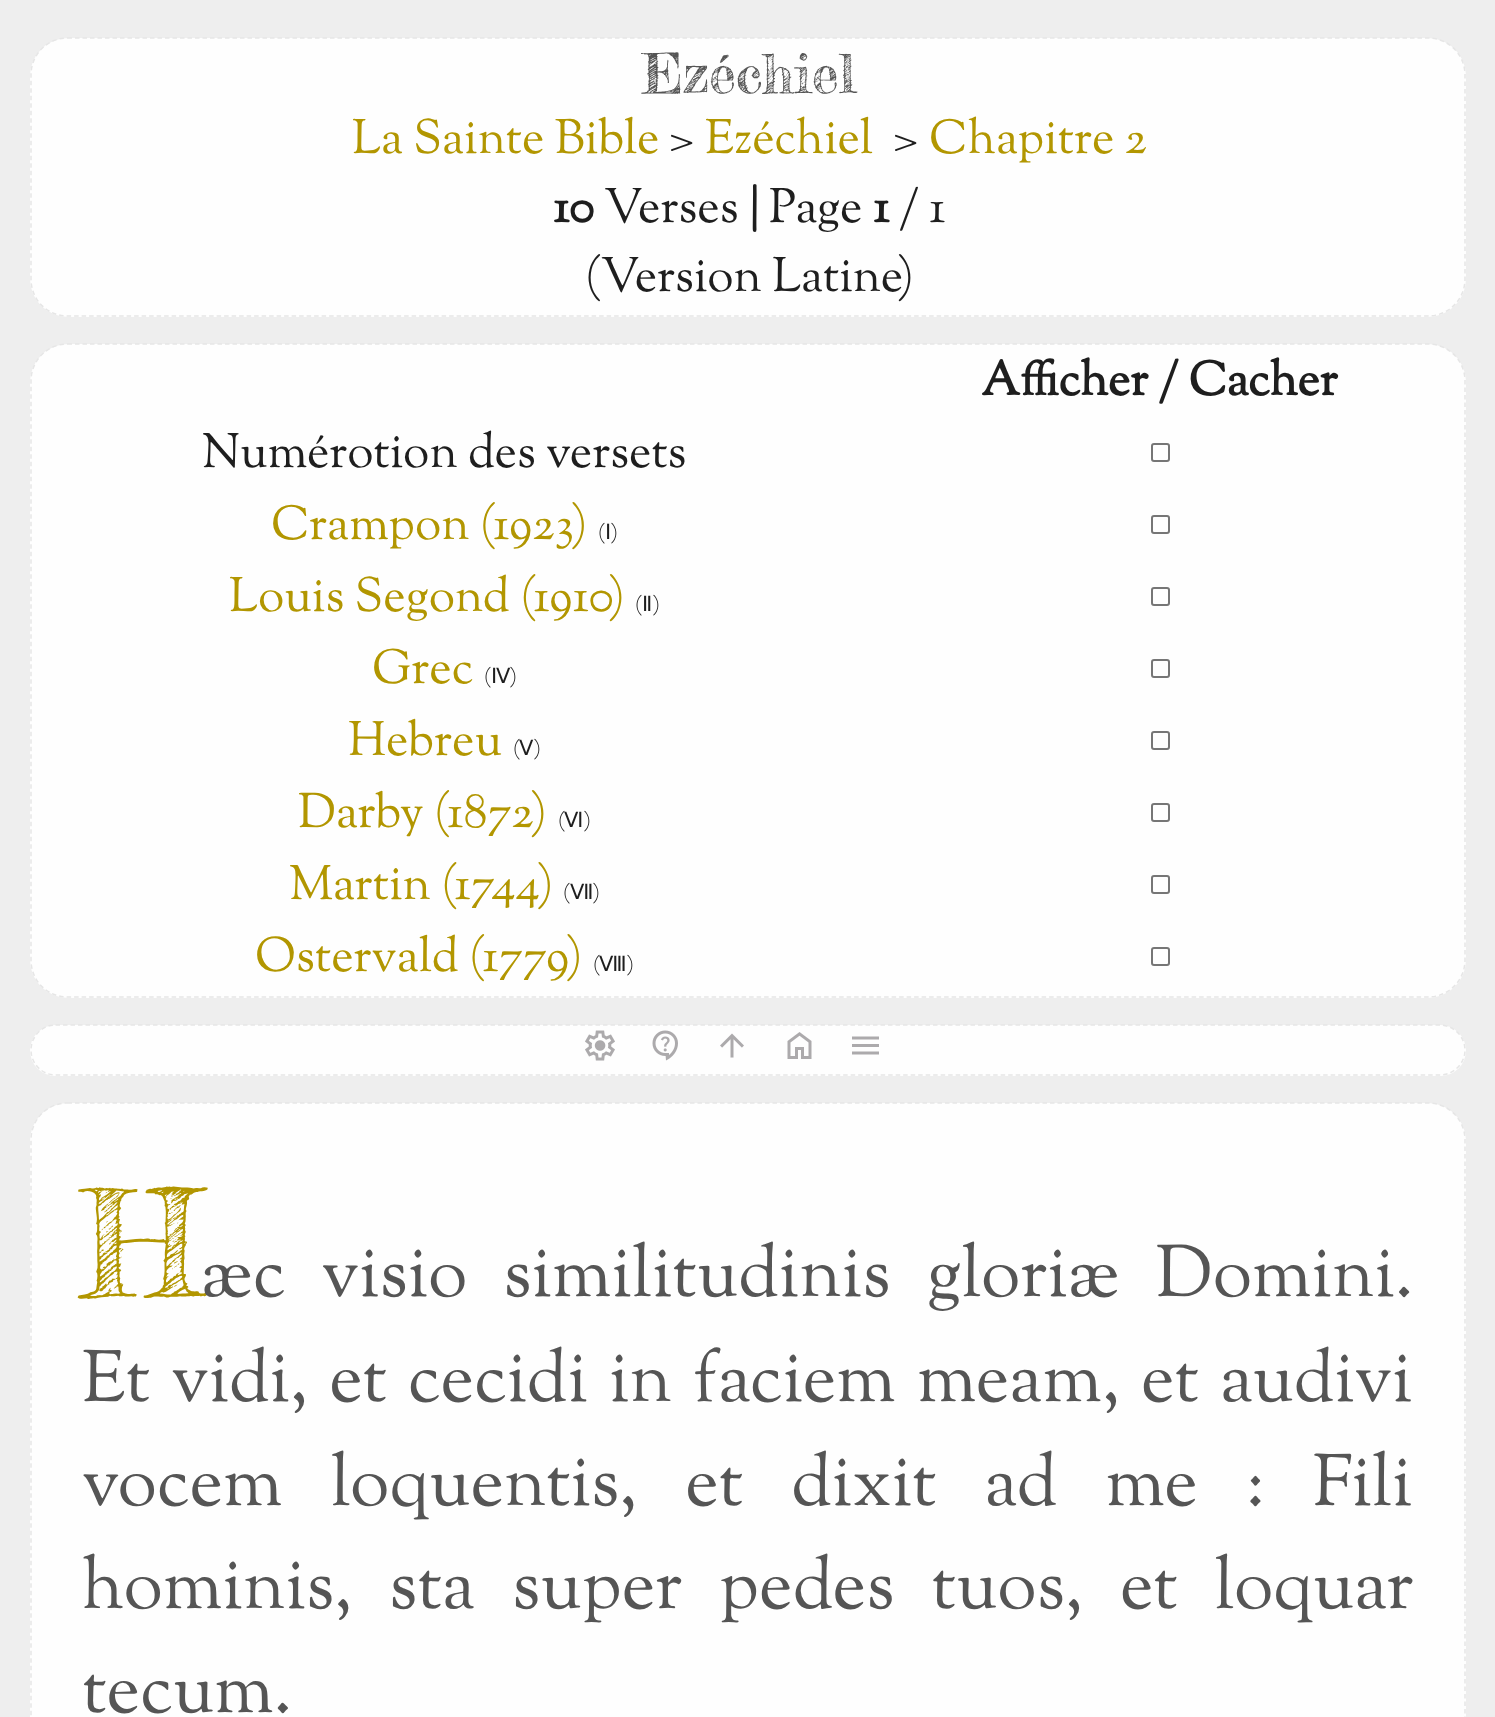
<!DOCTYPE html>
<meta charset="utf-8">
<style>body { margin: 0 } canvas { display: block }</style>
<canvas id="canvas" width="1495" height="1717"></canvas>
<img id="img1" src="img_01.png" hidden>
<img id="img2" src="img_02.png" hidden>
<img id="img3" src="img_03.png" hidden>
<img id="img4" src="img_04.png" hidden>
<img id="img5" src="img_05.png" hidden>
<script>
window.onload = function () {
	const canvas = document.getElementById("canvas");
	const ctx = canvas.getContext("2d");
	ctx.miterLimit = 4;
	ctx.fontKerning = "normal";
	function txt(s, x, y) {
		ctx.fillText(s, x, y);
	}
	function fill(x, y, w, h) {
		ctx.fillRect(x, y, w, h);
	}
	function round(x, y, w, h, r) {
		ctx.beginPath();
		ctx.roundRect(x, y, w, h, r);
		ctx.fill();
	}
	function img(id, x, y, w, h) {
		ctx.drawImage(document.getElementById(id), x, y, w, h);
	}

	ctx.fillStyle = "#EEEEEE";
	fill(0, 0, 1495, 1717);
	ctx.fillStyle = "#FEFEFE";
	round(30, 38, 1436, 279, 38);
	ctx.beginPath();
	ctx.moveTo(67.5, 38);
	ctx.lineTo(1428, 38);
	ctx.bezierCurveTo(1448.5, 38, 1465, 54.5, 1465, 75);
	ctx.lineTo(1465, 279);
	ctx.bezierCurveTo(1465, 299.5, 1448.5, 316, 1428, 316);
	ctx.lineTo(67.5, 316);
	ctx.bezierCurveTo(47, 316, 31, 299.5, 31, 279);
	ctx.lineTo(31, 75);
	ctx.bezierCurveTo(31, 54.5, 47, 38, 67.5, 38);
	ctx.closePath();
	ctx.strokeStyle = "#E6E6E6";
	ctx.lineWidth = 1.5;
	ctx.setLineDash([4.5, 3]);
	ctx.stroke();
	round(30, 344, 1436, 654, 38);
	ctx.beginPath();
	ctx.moveTo(67.5, 344);
	ctx.lineTo(1428, 344);
	ctx.bezierCurveTo(1448.5, 344, 1465, 360.5, 1465, 381);
	ctx.lineTo(1465, 960);
	ctx.bezierCurveTo(1465, 980.5, 1448.5, 997, 1428, 997);
	ctx.lineTo(67.5, 997);
	ctx.bezierCurveTo(47, 997, 31, 980.5, 31, 960);
	ctx.lineTo(31, 381);
	ctx.bezierCurveTo(31, 360.5, 47, 344, 67.5, 344);
	ctx.closePath();
	ctx.stroke();
	ctx.beginPath();
	ctx.roundRect(1152, 444, 17, 17, 2);
	ctx.strokeStyle = "#767676";
	ctx.lineWidth = 2;
	ctx.setLineDash([]);
	ctx.stroke();
	ctx.beginPath();
	ctx.roundRect(1152, 516, 17, 17, 2);
	ctx.stroke();
	ctx.beginPath();
	ctx.roundRect(1152, 588, 17, 17, 2);
	ctx.stroke();
	ctx.beginPath();
	ctx.roundRect(1152, 660, 17, 17, 2);
	ctx.stroke();
	ctx.beginPath();
	ctx.roundRect(1152, 732, 17, 17, 2);
	ctx.stroke();
	ctx.beginPath();
	ctx.roundRect(1152, 804, 17, 17, 2);
	ctx.stroke();
	ctx.beginPath();
	ctx.roundRect(1152, 876, 17, 17, 2);
	ctx.stroke();
	ctx.beginPath();
	ctx.roundRect(1152, 948, 17, 17, 2);
	ctx.stroke();
	round(30, 1025, 1436, 51, 25.5);
	ctx.beginPath();
	ctx.moveTo(55.5, 1025);
	ctx.lineTo(1440, 1025);
	ctx.bezierCurveTo(1453.5, 1025, 1465, 1036.5, 1465, 1050);
	ctx.bezierCurveTo(1465, 1063.5, 1453.5, 1075, 1440, 1075);
	ctx.lineTo(55.5, 1075);
	ctx.bezierCurveTo(42, 1075, 31, 1063.5, 31, 1050);
	ctx.bezierCurveTo(31, 1036.5, 42, 1025, 55.5, 1025);
	ctx.closePath();
	ctx.strokeStyle = "#E6E6E6";
	ctx.lineWidth = 1.5;
	ctx.setLineDash([4.5, 3]);
	ctx.stroke();
	img("img1", 585, 1030, 30, 31);
	img("img2", 652, 1030, 26, 31);
	img("img3", 720, 1033, 24, 25);
	img("img4", 787, 1032, 25, 27);
	img("img5", 852, 1036, 27, 19);
	round(30, 1103, 1436, 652, 38);
	ctx.beginPath();
	ctx.moveTo(67.5, 1103);
	ctx.lineTo(1428, 1103);
	ctx.bezierCurveTo(1448.5, 1103, 1465, 1119.5, 1465, 1140);
	ctx.lineTo(1465, 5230.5);
	ctx.bezierCurveTo(1465, 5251, 1448.5, 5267, 1428, 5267);
	ctx.lineTo(67.5, 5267);
	ctx.bezierCurveTo(47, 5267, 31, 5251, 31, 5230.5);
	ctx.lineTo(31, 1140);
	ctx.bezierCurveTo(31, 1119.5, 47, 1103, 67.5, 1103);
	ctx.closePath();
	ctx.stroke();
	ctx.font = "54px Fredericka the Great";
	ctx.fillStyle = "#555555";
	txt("Ezéchiel", 642, 93);
	ctx.font = "48px Sorts Mill Goudy";
	ctx.fillStyle = "#B29600";
	txt("La Sainte Bible", 352, 153);
	ctx.fillStyle = "#1E1E1E";
	txt(">", 669, 153);
	ctx.fillStyle = "#B29600";
	txt("Ezéchiel", 705, 153);
	ctx.fillStyle = "#1E1E1E";
	txt(">", 893, 153);
	ctx.fillStyle = "#B29600";
	txt("Chapitre 2", 929, 153);
	ctx.font = "bold 48px Sorts Mill Goudy";
	ctx.fillStyle = "#1E1E1E";
	txt("10", 553, 222);
	ctx.font = "48px Sorts Mill Goudy";
	txt("Verses", 604, 222);
	ctx.font = "bold 48px Sorts Mill Goudy";
	txt("|", 749, 222);
	ctx.font = "48px Sorts Mill Goudy";
	txt("Page", 769, 222);
	ctx.font = "bold 48px Sorts Mill Goudy";
	txt("1", 873, 222);
	ctx.font = "48px Sorts Mill Goudy";
	txt("/ 1", 899, 222);
	txt("(Version Latine)", 585, 291);
	ctx.font = "bold 48px Sorts Mill Goudy";
	txt("Afficher / Cacher", 981, 395);
	ctx.font = "48px Sorts Mill Goudy";
	txt("Numérotion des versets", 202, 467);
	ctx.fillStyle = "#B29600";
	txt("Crampon (1923)", 271, 539);
	ctx.font = "21px Sorts Mill Goudy";
	ctx.fillStyle = "#1E1E1E";
	txt("(", 598, 539);
	ctx.font = "21px DejaVu Sans";
	txt("Ⅰ", 605, 539);
	ctx.font = "21px Sorts Mill Goudy";
	txt(")", 611, 539);
	ctx.font = "48px Sorts Mill Goudy";
	ctx.fillStyle = "#B29600";
	txt("Louis Segond (1910)", 229, 611);
	ctx.font = "21px Sorts Mill Goudy";
	ctx.fillStyle = "#1E1E1E";
	txt("(", 635, 611);
	ctx.font = "21px DejaVu Sans";
	txt("Ⅱ", 642, 611);
	ctx.font = "21px Sorts Mill Goudy";
	txt(")", 653, 611);
	ctx.font = "48px Sorts Mill Goudy";
	ctx.fillStyle = "#B29600";
	txt("Grec", 372, 683);
	ctx.font = "21px Sorts Mill Goudy";
	ctx.fillStyle = "#1E1E1E";
	txt("(", 484, 683);
	ctx.font = "21px DejaVu Sans";
	txt("Ⅳ", 491, 683);
	ctx.font = "21px Sorts Mill Goudy";
	txt(")", 510, 683);
	ctx.font = "48px Sorts Mill Goudy";
	ctx.fillStyle = "#B29600";
	txt("Hebreu", 348, 755);
	ctx.font = "21px Sorts Mill Goudy";
	ctx.fillStyle = "#1E1E1E";
	txt("(", 513, 755);
	ctx.font = "21px DejaVu Sans";
	txt("Ⅴ", 519, 755);
	ctx.font = "21px Sorts Mill Goudy";
	txt(")", 534, 755);
	ctx.font = "48px Sorts Mill Goudy";
	ctx.fillStyle = "#B29600";
	txt("Darby (1872)", 298, 827);
	ctx.font = "21px Sorts Mill Goudy";
	ctx.fillStyle = "#1E1E1E";
	txt("(", 558, 827);
	ctx.font = "21px DejaVu Sans";
	txt("Ⅵ", 564, 827);
	ctx.font = "21px Sorts Mill Goudy";
	txt(")", 584, 827);
	ctx.font = "48px Sorts Mill Goudy";
	ctx.fillStyle = "#B29600";
	txt("Martin (1744)", 289, 899);
	ctx.font = "21px Sorts Mill Goudy";
	ctx.fillStyle = "#1E1E1E";
	txt("(", 563, 899);
	ctx.font = "21px DejaVu Sans";
	txt("Ⅶ", 570, 899);
	ctx.font = "21px Sorts Mill Goudy";
	txt(")", 593, 899);
	ctx.font = "48px Sorts Mill Goudy";
	ctx.fillStyle = "#B29600";
	txt("Ostervald (1779)", 255, 971);
	ctx.font = "21px Sorts Mill Goudy";
	ctx.fillStyle = "#1E1E1E";
	txt("(", 593, 971);
	ctx.font = "21px DejaVu Sans";
	txt("Ⅷ", 599, 971);
	ctx.font = "21px Sorts Mill Goudy";
	txt(")", 627, 971);
	ctx.font = "144px Fredericka the Great";
	ctx.fillStyle = "#B29600";
	txt("H", 82, 1296);
	ctx.wordSpacing = "20.5px";
	ctx.font = "72px Sorts Mill Goudy";
	ctx.fillStyle = "#555555";
	txt("æc visio similitudinis gloriæ Domini.", 201, 1296);
	ctx.wordSpacing = "5.75px";
	txt("Et vidi, et cecidi in faciem meam, et audivi", 82, 1401);
	ctx.wordSpacing = "32.75px";
	txt("vocem loquentis, et dixit ad me : Fili", 82, 1505);
	ctx.wordSpacing = "21.5px";
	txt("hominis, sta super pedes tuos, et loquar", 82, 1608);
	ctx.wordSpacing = "0px";
	txt("tecum.", 82, 1712);
};
</script>
